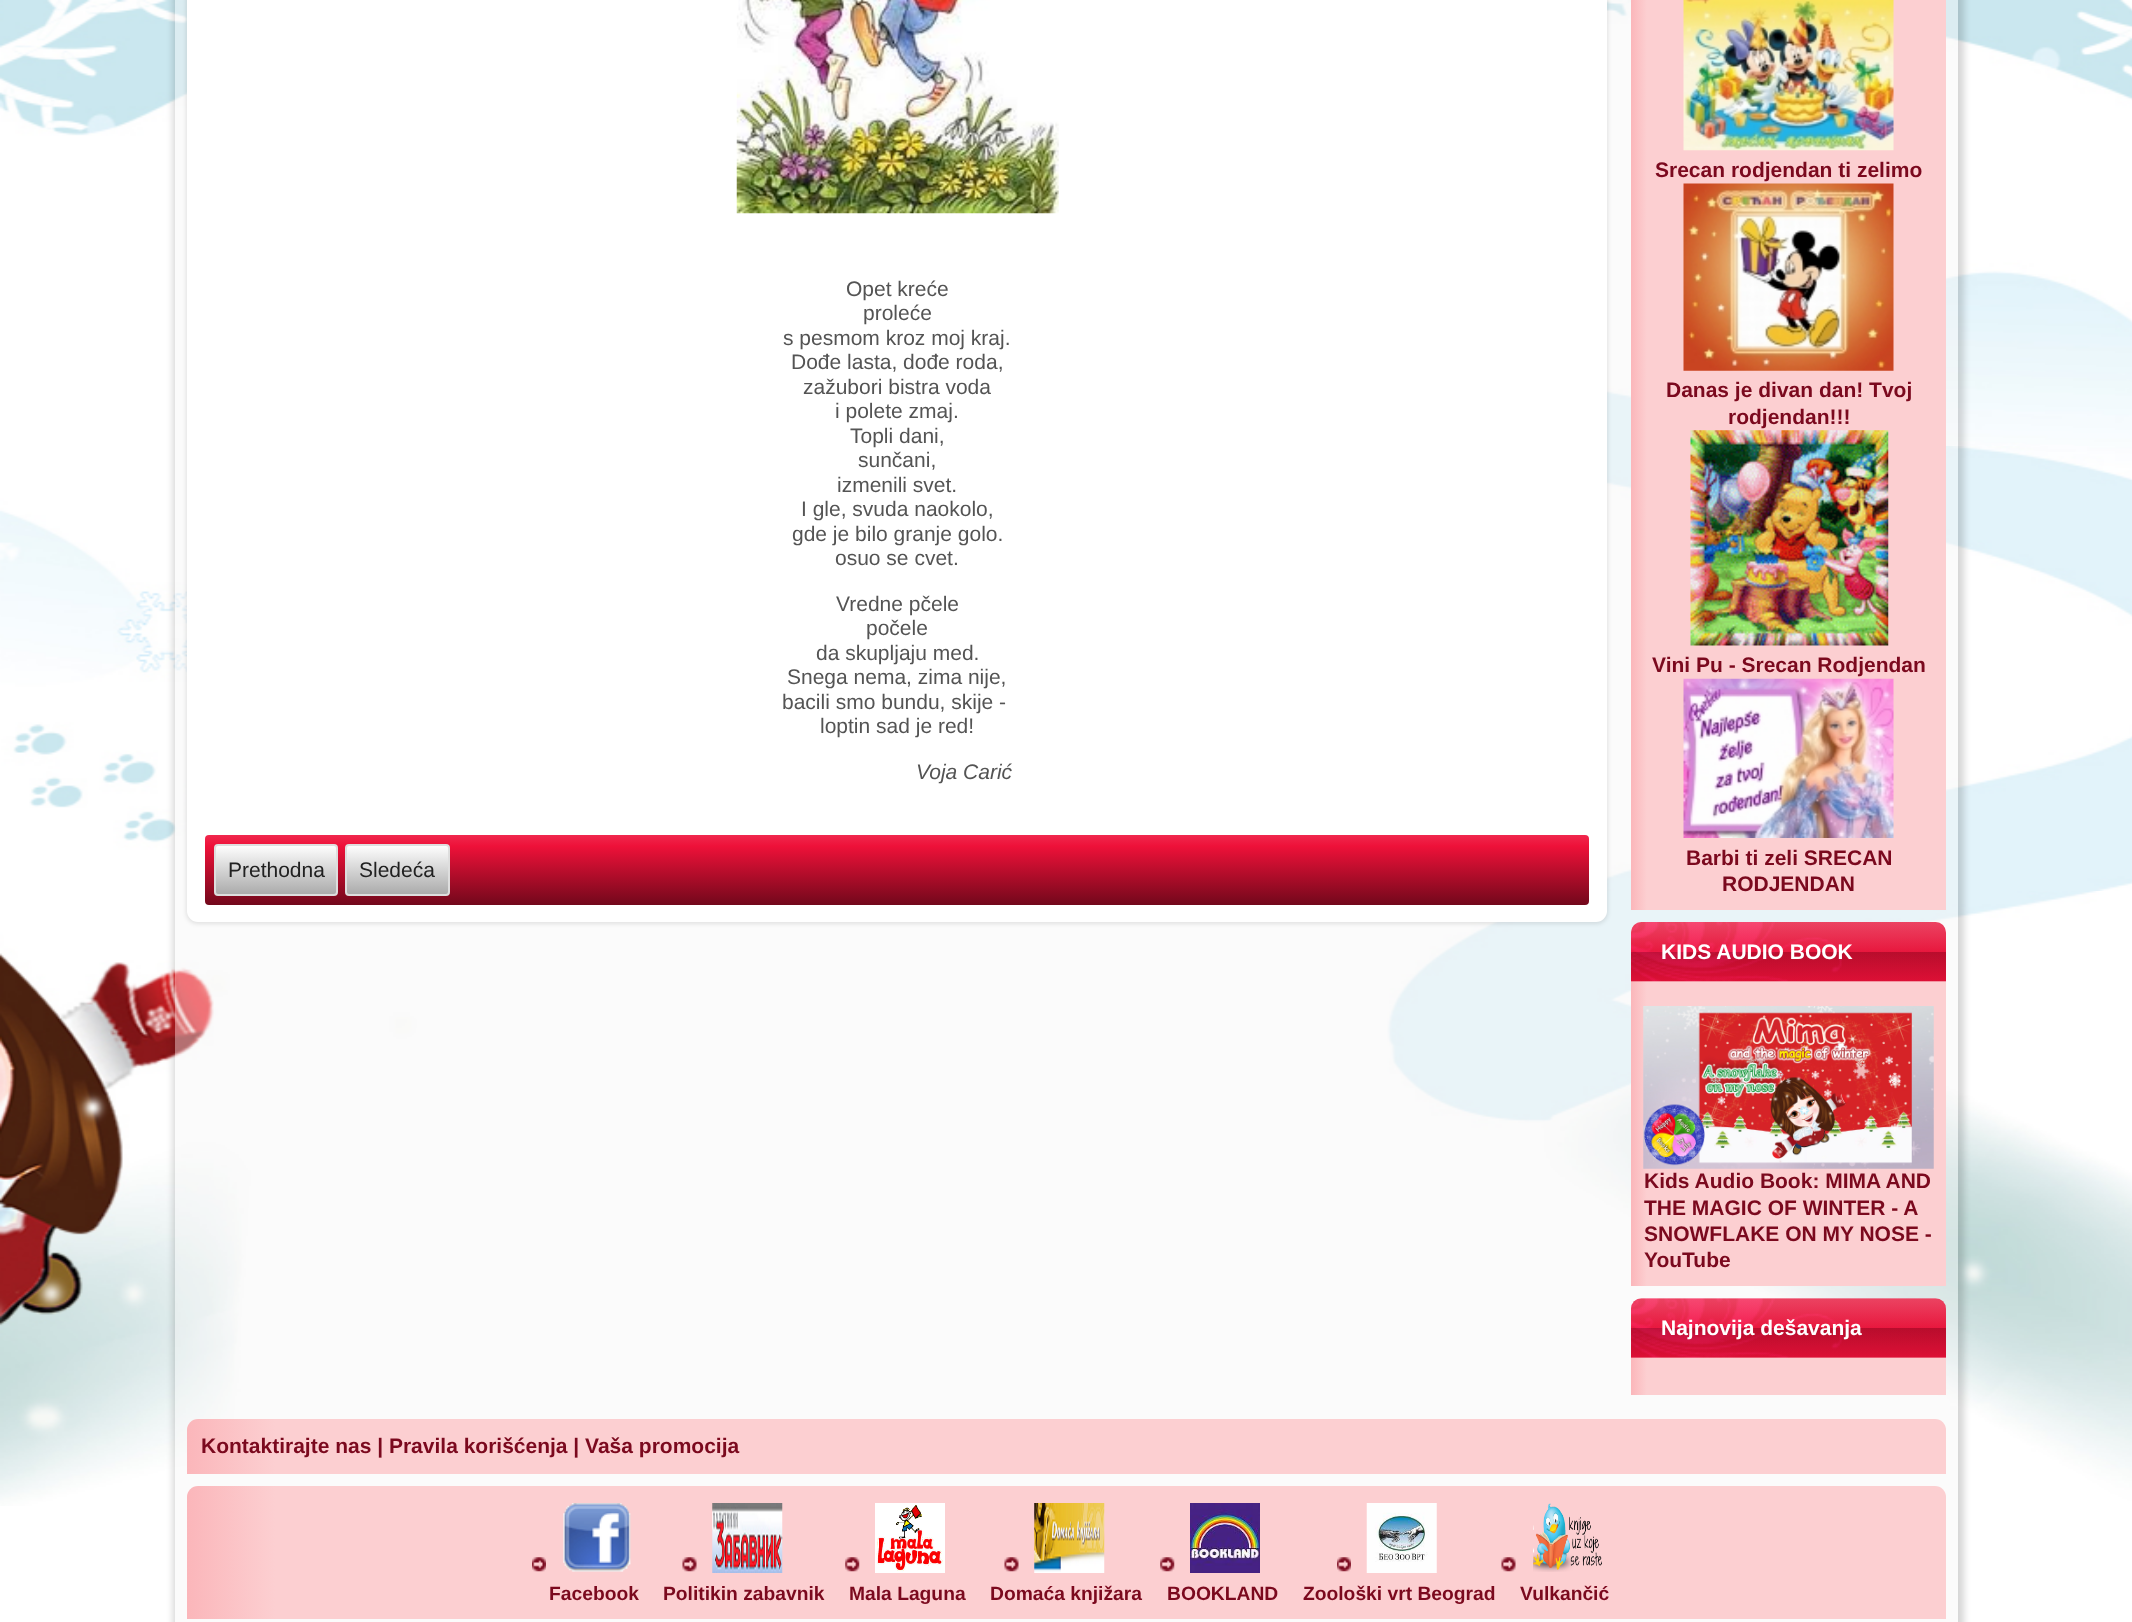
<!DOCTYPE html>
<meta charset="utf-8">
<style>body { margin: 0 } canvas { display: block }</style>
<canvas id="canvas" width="2132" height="1622"></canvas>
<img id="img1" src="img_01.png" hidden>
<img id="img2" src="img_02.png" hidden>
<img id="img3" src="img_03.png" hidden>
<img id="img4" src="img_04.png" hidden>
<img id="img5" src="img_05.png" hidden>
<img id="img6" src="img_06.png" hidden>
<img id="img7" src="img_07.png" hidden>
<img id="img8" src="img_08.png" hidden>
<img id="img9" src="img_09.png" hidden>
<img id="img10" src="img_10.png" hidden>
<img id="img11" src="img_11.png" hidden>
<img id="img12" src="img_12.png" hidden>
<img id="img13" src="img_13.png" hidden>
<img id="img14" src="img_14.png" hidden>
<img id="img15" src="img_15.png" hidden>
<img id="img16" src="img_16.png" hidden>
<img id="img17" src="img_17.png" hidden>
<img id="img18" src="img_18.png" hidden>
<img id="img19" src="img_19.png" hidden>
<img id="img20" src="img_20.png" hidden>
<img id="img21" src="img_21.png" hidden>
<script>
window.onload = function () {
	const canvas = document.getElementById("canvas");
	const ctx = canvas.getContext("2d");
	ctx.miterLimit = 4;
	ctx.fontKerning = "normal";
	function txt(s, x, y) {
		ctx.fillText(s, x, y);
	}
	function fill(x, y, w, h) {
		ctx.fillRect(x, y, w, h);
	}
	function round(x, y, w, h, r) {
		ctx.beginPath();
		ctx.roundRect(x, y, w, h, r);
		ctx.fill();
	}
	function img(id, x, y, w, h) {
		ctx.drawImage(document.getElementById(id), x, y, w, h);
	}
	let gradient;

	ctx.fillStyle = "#FFFFFF";
	fill(0, 0, 2132, 1622);
	img("img1", 0, 0, 2132, 1506);
	ctx.save();
	ctx.beginPath();
	ctx.moveTo(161, 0);
	ctx.lineTo(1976, 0);
	ctx.lineTo(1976, 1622);
	ctx.lineTo(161, 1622);
	ctx.closePath();
	ctx.moveTo(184, -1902);
	ctx.lineTo(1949, -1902);
	ctx.bezierCurveTo(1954, -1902, 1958, -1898, 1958, -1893);
	ctx.lineTo(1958, 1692);
	ctx.bezierCurveTo(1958, 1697, 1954, 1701, 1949, 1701);
	ctx.lineTo(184, 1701);
	ctx.bezierCurveTo(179, 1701, 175, 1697, 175, 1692);
	ctx.lineTo(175, -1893);
	ctx.bezierCurveTo(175, -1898, 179, -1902, 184, -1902);
	ctx.closePath();
	ctx.clip("evenodd");
	ctx.fillStyle = "rgba(0, 0, 0, 0.16)";
	ctx.filter = "blur(3.5px)";
	ctx.beginPath();
	ctx.roundRect(173, -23, 1791, 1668, 12);
	ctx.fill();
	ctx.filter = "none";
	ctx.restore();
	ctx.fillStyle = "rgba(245, 245, 245, 0.4)";
	fill(175, 0, 1783, 1622);
	ctx.fillStyle = "rgba(0, 0, 0, 0.1)";
	ctx.filter = "blur(2px)";
	ctx.beginPath();
	ctx.roundRect(186, -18, 1422, 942, 12);
	ctx.fill();
	ctx.filter = "none";
	ctx.fillStyle = "#FFFFFF";
	round(187, -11, 1420, 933, 11);
	img("img2", 736, 0, 323, 214);
	gradient = ctx.createLinearGradient(897, 835, 897, 905);
	gradient.addColorStop(0, "#F0284D");
	gradient.addColorStop(0.16, "#EE1139");
	gradient.addColorStop(1, "#72081B");
	ctx.fillStyle = gradient;
	round(205, 835, 1384, 70, 4);
	gradient = ctx.createLinearGradient(276, 845, 276, 894);
	gradient.addColorStop(0, "#FFFFFF");
	gradient.addColorStop(1, "#ABABAB");
	ctx.fillStyle = gradient;
	fill(215, 845, 121, 49);
	ctx.beginPath();
	ctx.roundRect(215, 845, 122, 50, 3);
	ctx.strokeStyle = "#DEDEDE";
	ctx.lineWidth = 2;
	ctx.stroke();
	gradient = ctx.createLinearGradient(397, 845, 397, 894);
	gradient.addColorStop(0, "#FFFFFF");
	gradient.addColorStop(1, "#ABABAB");
	ctx.fillStyle = gradient;
	fill(347, 846, 101, 48);
	ctx.beginPath();
	ctx.roundRect(346, 845, 103, 50, 3);
	ctx.stroke();
	gradient = ctx.createLinearGradient(1631, 312, 1946, 312);
	gradient.addColorStop(0, "#FBB6BA");
	gradient.addColorStop(0.05, "#FCCFD1");
	gradient.addColorStop(0.1, "#FCCFD1");
	ctx.fillStyle = gradient;
	fill(1631, 0, 315, 910);
	img("img3", 1683, 0, 211, 151);
	img("img4", 1683, 183, 211, 188);
	img("img5", 1690, 430, 199, 216);
	img("img6", 1683, 678, 211, 160);
	gradient = ctx.createLinearGradient(1631, 1104, 1946, 1104);
	gradient.addColorStop(0, "#FBB6BA");
	gradient.addColorStop(0.05, "#FCCFD1");
	gradient.addColorStop(0.1, "#FCCFD1");
	ctx.fillStyle = gradient;
	ctx.beginPath();
	ctx.roundRect(1631, 922, 315, 364, [11, 11, 0, 0]);
	ctx.fill();
	img("img7", 1631, 922, 315, 60);
	img("img8", 1643, 1006, 291, 163);
	gradient = ctx.createLinearGradient(1631, 1347, 1946, 1347);
	gradient.addColorStop(0, "#FBB6BA");
	gradient.addColorStop(0.05, "#FCCFD1");
	gradient.addColorStop(0.1, "#FCCFD1");
	ctx.fillStyle = gradient;
	ctx.beginPath();
	ctx.roundRect(1631, 1299, 315, 96, [11, 11, 0, 0]);
	ctx.fill();
	img("img9", 1631, 1298, 315, 60);
	gradient = ctx.createLinearGradient(187, 1446, 1946, 1446);
	gradient.addColorStop(0, "#FBB6BA");
	gradient.addColorStop(0.05, "#FCCFD1");
	gradient.addColorStop(0.1, "#FCCFD1");
	ctx.fillStyle = gradient;
	ctx.beginPath();
	ctx.roundRect(187, 1419, 1759, 55, [11, 11, 0, 0]);
	ctx.fill();
	gradient = ctx.createLinearGradient(187, 1552, 1946, 1552);
	gradient.addColorStop(0, "#FBB6BA");
	gradient.addColorStop(0.05, "#FCCFD1");
	gradient.addColorStop(0.1, "#FCCFD1");
	ctx.fillStyle = gradient;
	ctx.beginPath();
	ctx.roundRect(187, 1486, 1759, 133, [11, 11, 0, 0]);
	ctx.fill();
	img("img10", 532, 1557, 14, 15);
	img("img11", 563, 1503, 68, 69);
	img("img12", 682, 1557, 15, 15);
	img("img13", 712, 1503, 71, 70);
	img("img14", 845, 1557, 15, 15);
	img("img15", 875, 1503, 70, 70);
	img("img16", 1004, 1557, 15, 15);
	img("img17", 1034, 1503, 71, 70);
	img("img14", 1160, 1557, 15, 15);
	img("img18", 1190, 1503, 70, 70);
	img("img19", 1337, 1557, 14, 15);
	img("img20", 1366, 1503, 71, 70);
	img("img16", 1501, 1557, 15, 15);
	img("img21", 1533, 1503, 69, 69);
	ctx.font = "21px Liberation Sans";
	ctx.fillStyle = "#545454";
	txt("Opet kreće", 846, 296);
	txt("proleće", 863, 320);
	txt("s pesmom kroz moj kraj.", 783, 345);
	txt("Dođe lasta, dođe roda,", 791, 369);
	txt("zažubori bistra voda", 803, 394);
	txt("i polete zmaj.", 835, 418);
	txt("Topli dani,", 850, 443);
	txt("sunčani,", 858, 467);
	txt("izmenili svet.", 837, 492);
	txt("I gle, svuda naokolo,", 801, 516);
	txt("gde je bilo granje golo.", 792, 541);
	txt("osuo se cvet.", 835, 565);
	txt("Vredne pčele", 836, 611);
	txt("počele", 866, 635);
	txt("da skupljaju med.", 816, 660);
	txt("Snega nema, zima nije,", 787, 684);
	txt("bacili smo bundu, skije -", 782, 709);
	txt("loptin sad je red!", 820, 733);
	ctx.font = "italic 21px Liberation Sans";
	txt("Voja Carić", 916, 779);
	ctx.font = "21px Liberation Sans";
	ctx.fillStyle = "#212121";
	txt("Prethodna", 228, 877);
	txt("Sledeća", 359, 877);
	ctx.font = "bold 21px Liberation Sans";
	ctx.fillStyle = "#7B091E";
	txt("Srecan rodjendan ti zelimo", 1655, 177);
	txt("Danas je divan dan! Tvoj", 1666, 397);
	txt("rodjendan!!!", 1728, 424);
	txt("Vini Pu - Srecan Rodjendan", 1652, 672);
	txt("Barbi ti zeli SRECAN", 1686, 865);
	txt("RODJENDAN", 1722, 891);
	ctx.fillStyle = "#FFFFFF";
	txt("KIDS AUDIO BOOK", 1661, 959);
	ctx.fillStyle = "#7B091E";
	txt("Kids Audio Book: MIMA AND", 1644, 1188);
	txt("THE MAGIC OF WINTER - A", 1644, 1215);
	txt("SNOWFLAKE ON MY NOSE -", 1644, 1241);
	txt("YouTube", 1644, 1267);
	ctx.fillStyle = "#FFFFFF";
	txt("Najnovija dešavanja", 1661, 1335);
	ctx.fillStyle = "#7B091E";
	txt("Kontaktirajte nas | Pravila korišćenja | Vaša promocija", 201, 1453);
	ctx.font = "bold 19.25px Liberation Sans";
	txt("Facebook", 549, 1600);
	txt("Politikin zabavnik", 663, 1600);
	txt("Mala Laguna", 849, 1600);
	txt("Domaća knjižara", 990, 1600);
	txt("BOOKLAND", 1167, 1600);
	txt("Zoološki vrt Beograd", 1303, 1600);
	txt("Vulkančić", 1520, 1600);
};
</script>
